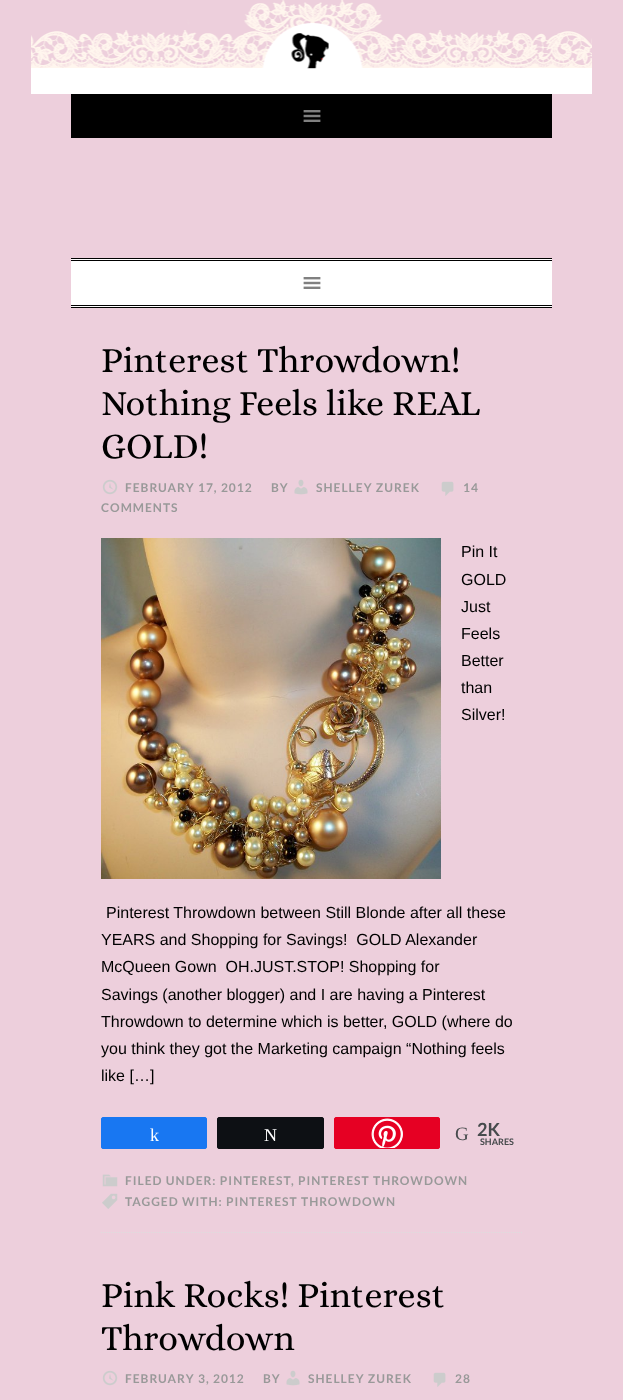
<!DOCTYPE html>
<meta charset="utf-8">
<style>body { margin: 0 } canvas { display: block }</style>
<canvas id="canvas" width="623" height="1400"></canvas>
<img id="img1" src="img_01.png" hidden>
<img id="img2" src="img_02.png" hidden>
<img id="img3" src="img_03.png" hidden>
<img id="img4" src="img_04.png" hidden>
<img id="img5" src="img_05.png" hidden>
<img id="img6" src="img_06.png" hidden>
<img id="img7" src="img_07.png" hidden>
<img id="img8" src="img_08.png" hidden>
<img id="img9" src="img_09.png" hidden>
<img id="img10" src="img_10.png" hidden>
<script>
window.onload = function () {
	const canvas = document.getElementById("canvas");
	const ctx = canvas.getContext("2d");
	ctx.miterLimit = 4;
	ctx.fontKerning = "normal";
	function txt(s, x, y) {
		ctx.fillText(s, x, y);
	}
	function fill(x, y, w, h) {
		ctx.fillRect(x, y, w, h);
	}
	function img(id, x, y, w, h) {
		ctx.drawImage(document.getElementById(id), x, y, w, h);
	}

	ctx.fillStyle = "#EDCFDC";
	fill(0, 0, 623, 1400);
	img("img1", 31, 0, 561, 94);
	ctx.fillStyle = "#000000";
	fill(71, 94, 481, 44);
	img("img2", 303, 110, 18, 12);
	ctx.fillStyle = "#FFFFFF";
	fill(71, 259, 481, 48);
	ctx.fillStyle = "#000000";
	fill(71, 258, 481, 1);
	fill(71, 260, 481, 1);
	fill(71, 305, 481, 1);
	fill(71, 307, 481, 1);
	img("img3", 303, 277, 18, 12);
	ctx.beginPath();
	ctx.moveTo(101, 1232.5);
	ctx.lineTo(522, 1232.5);
	ctx.strokeStyle = "#DDDDDD";
	ctx.setLineDash([1, 1]);
	ctx.stroke();
	img("img4", 441, 481, 13, 15);
	img("img5", 102, 479, 16, 16);
	img("img6", 294, 479, 14, 16);
	img("img7", 101, 538, 340, 341);
	ctx.fillStyle = "#1877F2";
	ctx.beginPath();
	ctx.roundRect(101.5, 1117.5, 105, 31, 1.5);
	ctx.fill();
	ctx.strokeStyle = "#1877F2";
	ctx.setLineDash([]);
	ctx.stroke();
	ctx.fillStyle = "#0D1014";
	ctx.beginPath();
	ctx.roundRect(217.5, 1117.5, 106, 31, 1.5);
	ctx.fill();
	ctx.strokeStyle = "#0D1014";
	ctx.stroke();
	ctx.fillStyle = "#E60023";
	ctx.beginPath();
	ctx.roundRect(334.5, 1117.5, 105, 31, 1.5);
	ctx.fill();
	ctx.strokeStyle = "#E60023";
	ctx.stroke();
	img("img8", 371, 1118, 32, 30);
	img("img9", 102, 1174, 16, 13);
	img("img10", 102, 1193, 16, 16);
	img("img5", 102, 1370, 16, 16);
	img("img6", 286, 1370, 14, 16);
	img("img4", 433, 1372, 13, 15);
	ctx.font = "36px Alice";
	ctx.fillStyle = "#000000";
	txt("Pinterest Throwdown!", 101, 372);
	txt("Nothing Feels like REAL", 101, 415);
	txt("GOLD!", 101, 458);
	ctx.letterSpacing = "1px";
	ctx.font = "bold 12px Lato";
	ctx.fillStyle = "#999999";
	txt("14", 463, 492);
	txt("COMMENTS", 101, 512);
	txt("FEBRUARY 17, 2012", 125, 492);
	txt("BY", 271, 492);
	txt("SHELLEY ZUREK", 316, 492);
	ctx.letterSpacing = "0px";
	ctx.font = "16px Liberation Sans";
	ctx.fillStyle = "#000000";
	txt("Pin It", 461, 557);
	txt("GOLD", 461, 585);
	txt("Just", 461, 612);
	txt("Feels", 461, 639);
	txt("Better", 461, 666);
	txt("than", 461, 693);
	txt("Silver!", 461, 720);
	txt("Pinterest Throwdown between Still Blonde after all these", 106, 918);
	txt("YEARS and Shopping for Savings!  GOLD Alexander", 101, 945);
	txt("McQueen Gown  OH.JUST.STOP! Shopping for", 101, 972);
	txt("Savings (another blogger) and I are having a Pinterest", 101, 1000);
	txt("Throwdown to determine which is better, GOLD (where do", 101, 1027);
	txt("you think they got the Marketing campaign “Nothing feels", 101, 1054);
	txt("like […]", 101, 1081);
	ctx.font = "18px Liberation Serif";
	ctx.fillStyle = "#FFFFFF";
	txt("k", 150, 1141);
	txt("N", 264, 1141);
	ctx.font = "19px Liberation Serif";
	ctx.fillStyle = "#474B4D";
	txt("G", 455, 1140);
	ctx.font = "bold 18px Lato";
	txt("2K", 477, 1136);
	ctx.font = "bold 9px Lato";
	txt("SHARES", 480, 1145);
	ctx.letterSpacing = "1px";
	ctx.font = "bold 12px Lato";
	ctx.fillStyle = "#999999";
	txt("FILED UNDER: PINTEREST", 125, 1185);
	txt(", PINTEREST THROWDOWN", 291, 1185);
	txt("TAGGED WITH: PINTEREST THROWDOWN", 125, 1206);
	ctx.letterSpacing = "0px";
	ctx.font = "36px Alice";
	ctx.fillStyle = "#000000";
	txt("Pink Rocks! Pinterest", 101, 1307);
	txt("Throwdown", 101, 1350);
	ctx.letterSpacing = "1px";
	ctx.font = "bold 12px Lato";
	ctx.fillStyle = "#999999";
	txt("FEBRUARY 3, 2012", 125, 1383);
	txt("BY", 263, 1383);
	txt("SHELLEY ZUREK", 308, 1383);
	txt("28", 455, 1383);
};
</script>
